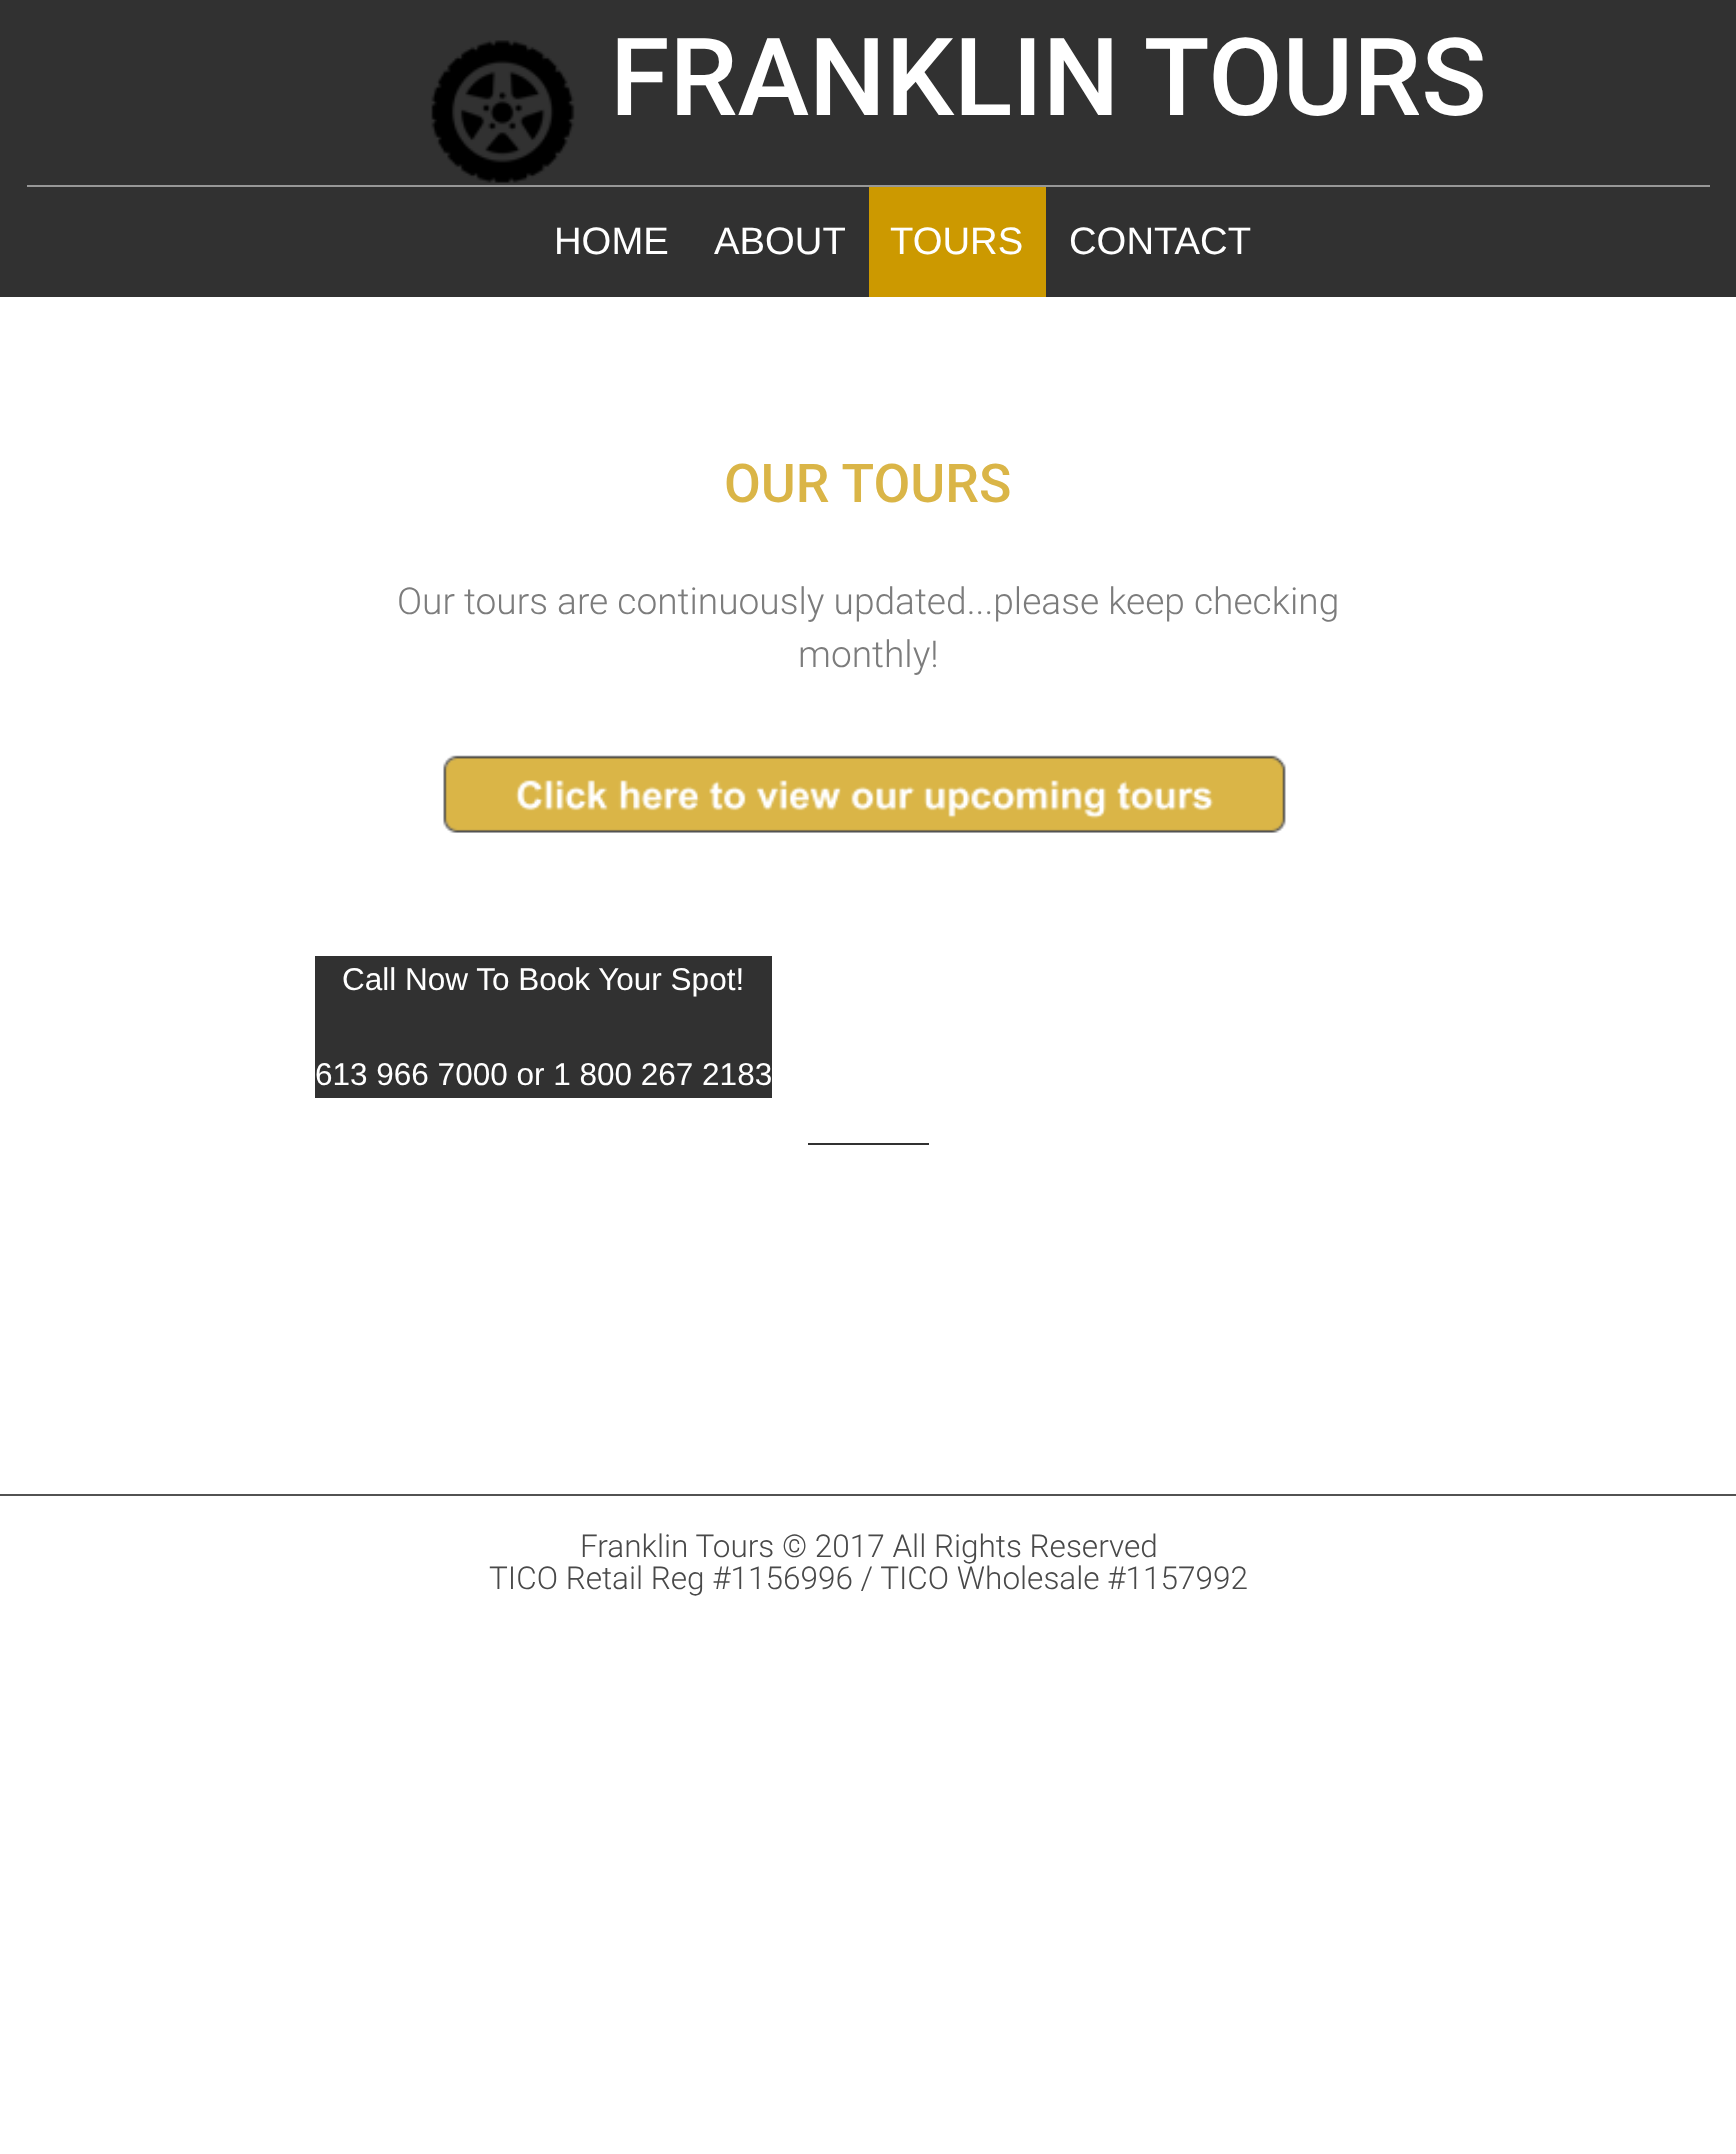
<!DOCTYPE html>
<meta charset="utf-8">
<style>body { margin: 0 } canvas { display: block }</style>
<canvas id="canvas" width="1736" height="2154"></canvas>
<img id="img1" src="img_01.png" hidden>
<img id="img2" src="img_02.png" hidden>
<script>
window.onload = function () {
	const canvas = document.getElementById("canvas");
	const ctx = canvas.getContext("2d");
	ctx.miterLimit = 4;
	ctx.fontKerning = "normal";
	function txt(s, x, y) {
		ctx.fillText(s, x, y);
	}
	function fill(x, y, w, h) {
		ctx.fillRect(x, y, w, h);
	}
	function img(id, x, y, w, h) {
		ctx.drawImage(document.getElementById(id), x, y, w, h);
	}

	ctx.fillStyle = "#FFFFFF";
	fill(0, 0, 1736, 2154);
	ctx.fillStyle = "#313131";
	fill(0, 0, 1736, 297);
	img("img1", 431, 40, 144, 143);
	ctx.fillStyle = "#979797";
	fill(27, 185, 1683, 2);
	ctx.fillStyle = "#CC9900";
	fill(869, 187, 177, 110);
	img("img2", 443, 755, 843, 78);
	ctx.fillStyle = "#313131";
	fill(315, 956, 457, 142);
	fill(808, 1143, 121, 2);
	ctx.fillStyle = "#525252";
	fill(0, 1494, 1736, 2);
	ctx.font = "500 108px Roboto";
	ctx.fillStyle = "#FFFFFF";
	txt("FRANKLIN TOURS", 610, 115);
	ctx.font = "38.25px Liberation Sans";
	txt("HOME", 554, 254);
	txt("ABOUT", 714, 254);
	txt("TOURS", 890, 254);
	txt("CONTACT", 1069, 254);
	ctx.font = "500 53.5px Roboto";
	ctx.fillStyle = "#DAB547";
	txt("OUR TOURS", 724, 502);
	ctx.font = "300 37.1px Roboto";
	ctx.fillStyle = "#7C7C7C";
	txt("Our tours are continuously updated...please keep checking", 397, 614);
	txt("monthly!", 798, 667);
	ctx.font = "31.5px Liberation Sans";
	ctx.fillStyle = "#FFFFFF";
	txt("Call Now To Book Your Spot!", 342, 990);
	txt("613 966 7000 or 1 800 267 2183", 315, 1085);
	ctx.font = "300 31.5px Roboto";
	ctx.fillStyle = "#494949";
	txt("Franklin Tours © 2017 All Rights Reserved", 580, 1557);
	txt("TICO Retail Reg #1156996 / TICO Wholesale #1157992", 489, 1589);
};
</script>
